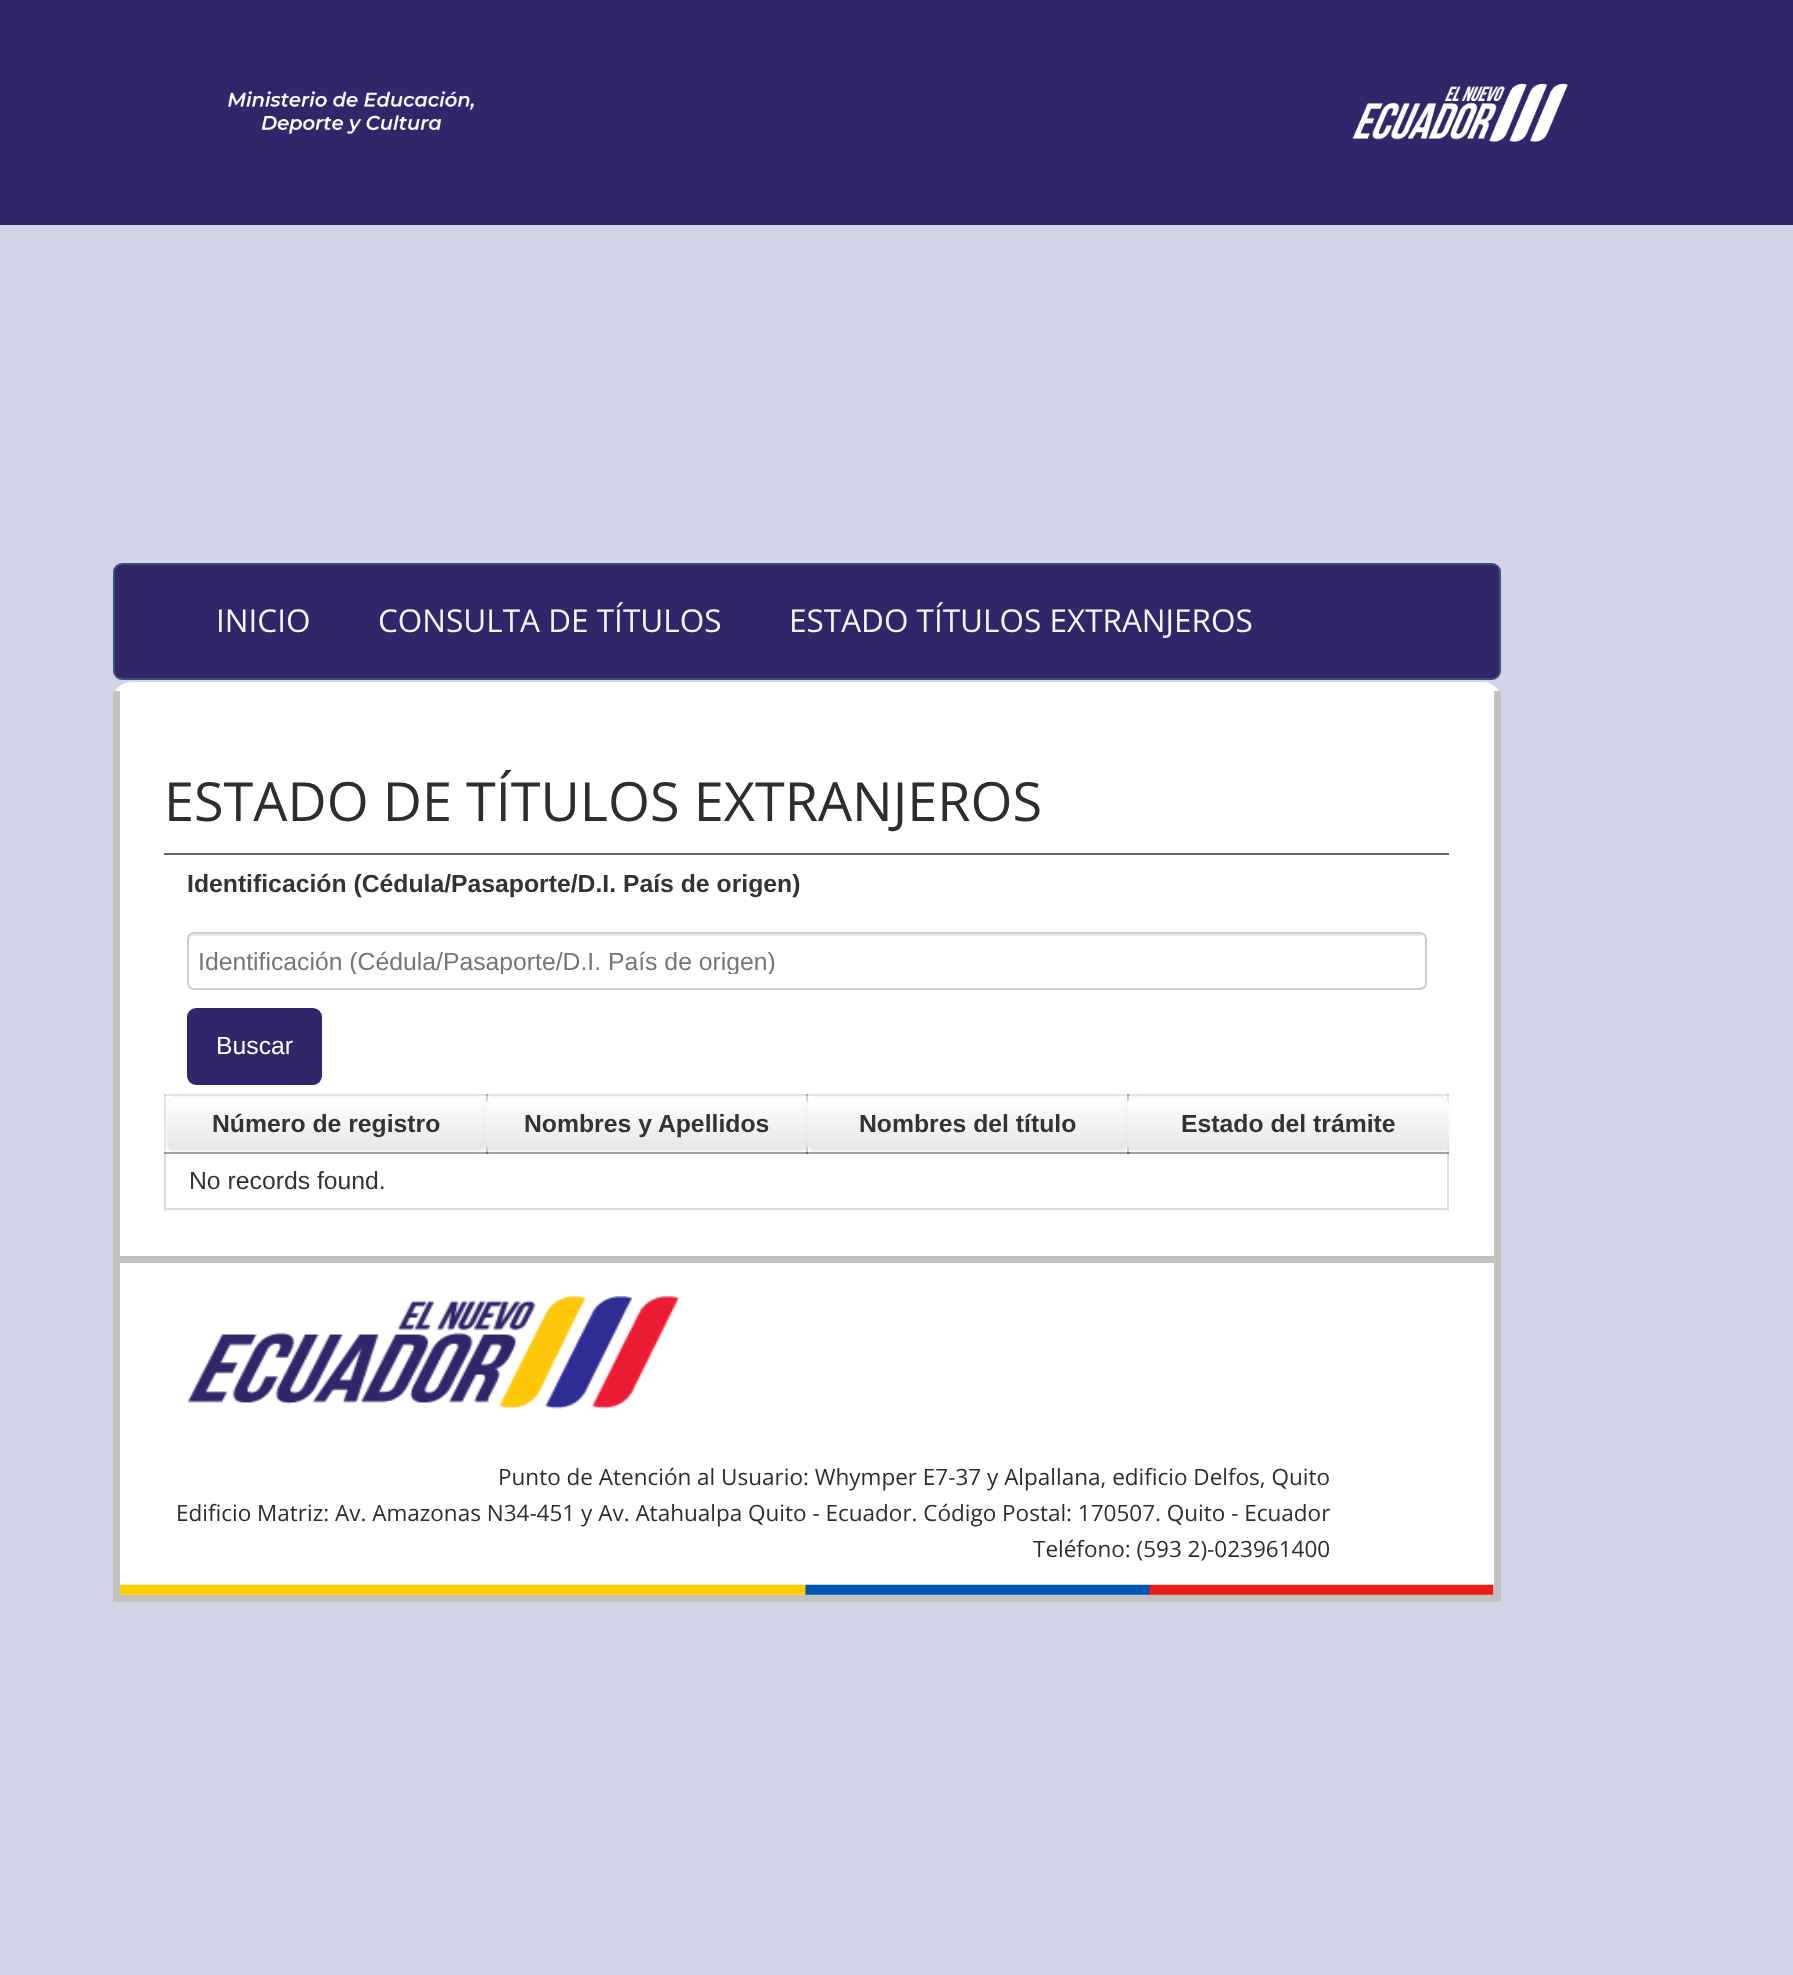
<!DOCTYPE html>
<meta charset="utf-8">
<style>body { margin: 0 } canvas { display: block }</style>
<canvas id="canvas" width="1793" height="1975"></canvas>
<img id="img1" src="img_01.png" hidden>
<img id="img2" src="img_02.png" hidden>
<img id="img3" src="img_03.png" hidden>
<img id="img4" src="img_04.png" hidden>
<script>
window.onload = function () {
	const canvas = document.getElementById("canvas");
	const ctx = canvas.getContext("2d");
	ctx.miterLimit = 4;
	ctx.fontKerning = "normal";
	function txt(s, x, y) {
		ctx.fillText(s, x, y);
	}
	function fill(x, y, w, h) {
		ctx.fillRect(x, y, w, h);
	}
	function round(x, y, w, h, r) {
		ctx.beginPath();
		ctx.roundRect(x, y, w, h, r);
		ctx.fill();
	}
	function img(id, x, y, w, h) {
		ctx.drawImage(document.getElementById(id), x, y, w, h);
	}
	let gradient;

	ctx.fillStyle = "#D3D3E7";
	fill(0, 0, 1793, 1975);
	ctx.fillStyle = "#32266B";
	fill(0, 0, 1793, 225);
	img("img1", 228, 90, 246, 45);
	img("img2", 1352, 83, 216, 59);
	ctx.beginPath();
	ctx.roundRect(114, 564, 1386, 115, 8);
	ctx.fill();
	ctx.strokeStyle = "#345578";
	ctx.lineWidth = 2;
	ctx.stroke();
	ctx.fillStyle = "#FFFFFF";
	ctx.beginPath();
	ctx.roundRect(113, 682, 1388, 574, [18, 18, 0, 0]);
	ctx.fill();
	ctx.fillStyle = "#E6E6E6";
	fill(164, 1094, 2, 60);
	fill(164, 1094, 324, 2);
	ctx.fillStyle = "#CFCFCF";
	fill(164, 1094, 2, 2);
	fill(486, 1094, 2, 60);
	ctx.fillStyle = "#E6E6E6";
	fill(486, 1094, 322, 2);
	ctx.fillStyle = "#A7A7A7";
	fill(486, 1094, 2, 2);
	ctx.fillStyle = "#CFCFCF";
	fill(806, 1094, 2, 60);
	ctx.fillStyle = "#E6E6E6";
	fill(806, 1094, 324, 2);
	ctx.fillStyle = "#A7A7A7";
	fill(806, 1094, 2, 2);
	ctx.fillStyle = "#CFCFCF";
	fill(1127, 1094, 2, 60);
	ctx.fillStyle = "#E6E6E6";
	fill(1447, 1094, 2, 60);
	ctx.fillStyle = "#C2C2C0";
	fill(1494, 691, 7, 565);
	fill(113, 691, 7, 565);
	ctx.fillStyle = "#666666";
	fill(164, 853, 1285, 2);
	ctx.fillStyle = "#ECECEC";
	ctx.beginPath();
	ctx.moveTo(194, 936);
	ctx.lineTo(1420, 936);
	ctx.bezierCurveTo(1422, 936, 1424, 938, 1424, 940);
	ctx.bezierCurveTo(1424, 937, 1422, 934, 1419, 934);
	ctx.lineTo(194, 934);
	ctx.bezierCurveTo(191, 934, 189, 937, 189, 940);
	ctx.bezierCurveTo(189, 938, 191, 936, 194, 936);
	ctx.closePath();
	ctx.fill();
	ctx.beginPath();
	ctx.roundRect(188, 933, 1238, 56, 6);
	ctx.strokeStyle = "#CCCCCC";
	ctx.stroke();
	ctx.fillStyle = "#32266B";
	ctx.beginPath();
	ctx.roundRect(188, 1009, 133, 75, 8);
	ctx.fill();
	ctx.strokeStyle = "#32266B";
	ctx.stroke();
	ctx.fillStyle = "#A6A6A6";
	fill(164, 1152, 1285, 2);
	ctx.fillStyle = "#656565";
	fill(486, 1152, 2, 2);
	ctx.fillStyle = "#DDDDDD";
	fill(1447, 1152, 2, 59);
	fill(164, 1208, 1285, 2);
	fill(164, 1152, 2, 59);
	ctx.fillStyle = "#959595";
	fill(164, 1152, 2, 2);
	ctx.fillStyle = "rgba(0, 0, 0, 0.05)";
	ctx.filter = "blur(2px)";
	ctx.beginPath();
	ctx.roundRect(167, 1098, 319, 56, 9);
	ctx.fill();
	ctx.filter = "none";
	ctx.fillStyle = "#F5F5F5";
	round(167, 1096, 319, 56, 9);
	ctx.save();
	ctx.beginPath();
	ctx.roundRect(167, 1096, 319, 56, 9);
	ctx.clip();
	gradient = ctx.createLinearGradient(326, 1098, 326, 1150);
	gradient.addColorStop(0, "#FFFFFF");
	gradient.addColorStop(1, "#E6E6E6");
	ctx.fillStyle = gradient;
	fill(167, 1098, 319, 52);
	ctx.restore();
	ctx.fillStyle = "#656565";
	fill(806, 1152, 2, 2);
	ctx.fillStyle = "rgba(0, 0, 0, 0.05)";
	ctx.filter = "blur(2px)";
	ctx.beginPath();
	ctx.roundRect(486, 1098, 322, 56, 9);
	ctx.fill();
	ctx.filter = "none";
	ctx.fillStyle = "#F5F5F5";
	round(486, 1096, 322, 56, 9);
	ctx.save();
	ctx.beginPath();
	ctx.roundRect(486, 1096, 322, 56, 9);
	ctx.clip();
	gradient = ctx.createLinearGradient(647, 1098, 647, 1150);
	gradient.addColorStop(0, "#FFFFFF");
	gradient.addColorStop(1, "#E6E6E6");
	ctx.fillStyle = gradient;
	fill(486, 1098, 322, 52);
	ctx.restore();
	ctx.fillStyle = "#E6E6E6";
	fill(1127, 1094, 322, 2);
	ctx.fillStyle = "#CFCFCF";
	fill(1127, 1094, 3, 2);
	ctx.fillStyle = "#A7A7A7";
	fill(1127, 1094, 2, 2);
	ctx.fillStyle = "#7D7D7D";
	fill(1127, 1152, 3, 2);
	ctx.fillStyle = "#656565";
	fill(1127, 1152, 2, 2);
	ctx.fillStyle = "rgba(0, 0, 0, 0.05)";
	ctx.filter = "blur(2px)";
	ctx.beginPath();
	ctx.roundRect(808, 1098, 319, 56, 9);
	ctx.fill();
	ctx.filter = "none";
	ctx.fillStyle = "#F5F5F5";
	round(808, 1096, 319, 56, 9);
	ctx.save();
	ctx.beginPath();
	ctx.roundRect(808, 1096, 319, 56, 9);
	ctx.clip();
	gradient = ctx.createLinearGradient(968, 1098, 968, 1150);
	gradient.addColorStop(0, "#FFFFFF");
	gradient.addColorStop(1, "#E6E6E6");
	ctx.fillStyle = gradient;
	fill(808, 1098, 319, 52);
	ctx.restore();
	ctx.fillStyle = "#CFCFCF";
	fill(1447, 1094, 2, 2);
	ctx.fillStyle = "#959595";
	fill(1447, 1152, 2, 2);
	ctx.fillStyle = "rgba(0, 0, 0, 0.05)";
	ctx.filter = "blur(2px)";
	ctx.beginPath();
	ctx.roundRect(1127, 1098, 322, 56, 9);
	ctx.fill();
	ctx.filter = "none";
	ctx.fillStyle = "#F5F5F5";
	round(1127, 1096, 322, 56, 9);
	ctx.save();
	ctx.beginPath();
	ctx.roundRect(1127, 1096, 322, 56, 9);
	ctx.clip();
	gradient = ctx.createLinearGradient(1288, 1098, 1288, 1150);
	gradient.addColorStop(0, "#FFFFFF");
	gradient.addColorStop(1, "#E6E6E6");
	ctx.fillStyle = gradient;
	fill(1127, 1098, 322, 52);
	ctx.restore();
	ctx.fillStyle = "#FFFFFF";
	fill(120, 1263, 1374, 332);
	img("img3", 120, 1584, 1374, 11);
	ctx.strokeStyle = "#C2C2C0";
	ctx.lineWidth = 7;
	ctx.strokeRect(116.5, 1259.5, 1381, 339);
	img("img4", 187, 1296, 493, 113);
	ctx.font = "31.5px Open Sans";
	ctx.fillStyle = "#F5F5F5";
	txt("INICIO", 216, 632);
	txt("CONSULTA DE TÍTULOS", 378, 632);
	txt("ESTADO TÍTULOS EXTRANJEROS", 789, 632);
	ctx.font = "54px Open Sans";
	ctx.fillStyle = "#2D2D2D";
	txt("ESTADO DE TÍTULOS EXTRANJEROS", 164, 821);
	ctx.font = "bold 24.75px Liberation Sans";
	ctx.fillStyle = "#333333";
	txt("Identificación (Cédula/Pasaporte/D.I. País de origen)", 187, 892);
	ctx.save();
	ctx.beginPath();
	ctx.rect(198, 947, 1217, 27);
	ctx.clip();
	ctx.font = "24.75px Liberation Sans";
	ctx.fillStyle = "#757575";
	txt("Identificación (Cédula/Pasaporte/D.I. País de origen)", 198, 970);
	ctx.restore();
	ctx.font = "24.75px Liberation Sans";
	ctx.fillStyle = "#FFFFFF";
	txt("Buscar", 216, 1054);
	ctx.font = "bold 24.75px Liberation Sans";
	ctx.fillStyle = "#333333";
	txt("Número de registro", 212, 1132);
	txt("Nombres y Apellidos", 524, 1132);
	txt("Nombres del título", 859, 1132);
	txt("Estado del trámite", 1181, 1132);
	ctx.font = "24.75px Liberation Sans";
	txt("No records found.", 189, 1189);
	ctx.font = "22.5px Open Sans";
	ctx.fillStyle = "#2D2D2D";
	txt("Punto de Atención al Usuario: Whymper E7-37 y Alpallana, edificio Delfos, Quito", 498, 1485);
	txt("Edificio Matriz: Av. Amazonas N34-451 y Av. Atahualpa Quito - Ecuador. Código Postal: 170507. Quito - Ecuador", 176, 1521);
	txt("Teléfono: (593 2)-023961400", 1033, 1557);
};
</script>
